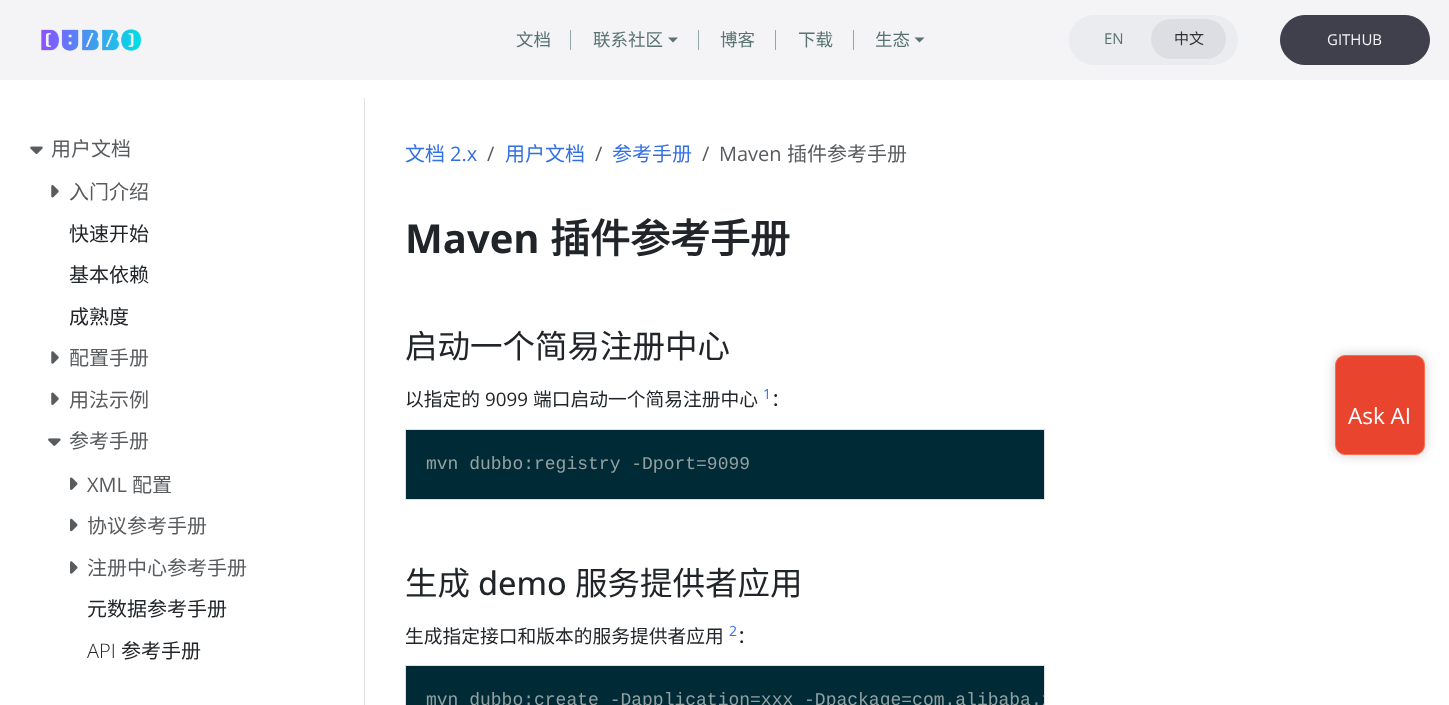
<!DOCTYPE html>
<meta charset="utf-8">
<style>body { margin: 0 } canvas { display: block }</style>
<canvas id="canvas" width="1449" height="705"></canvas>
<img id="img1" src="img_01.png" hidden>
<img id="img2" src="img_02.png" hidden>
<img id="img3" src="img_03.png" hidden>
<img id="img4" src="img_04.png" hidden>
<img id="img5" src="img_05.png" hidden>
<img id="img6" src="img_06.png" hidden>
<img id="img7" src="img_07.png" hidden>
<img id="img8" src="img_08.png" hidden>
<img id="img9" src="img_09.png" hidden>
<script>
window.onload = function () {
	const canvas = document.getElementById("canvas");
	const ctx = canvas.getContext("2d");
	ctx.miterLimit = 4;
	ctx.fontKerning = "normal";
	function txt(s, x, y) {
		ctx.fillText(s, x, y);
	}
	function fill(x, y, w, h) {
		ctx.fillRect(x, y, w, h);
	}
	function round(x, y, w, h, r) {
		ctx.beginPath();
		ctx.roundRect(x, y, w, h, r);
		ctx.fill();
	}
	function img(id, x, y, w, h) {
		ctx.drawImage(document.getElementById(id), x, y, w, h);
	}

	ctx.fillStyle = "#FFFFFF";
	fill(0, 0, 1449, 705);
	ctx.fillStyle = "#F4F4F6";
	fill(0, 0, 1449, 80);
	img("img1", 41, 29, 101, 22);
	ctx.fillStyle = "#8FA8A6";
	fill(570, 30, 1, 20);
	ctx.fillStyle = "#597371";
	ctx.beginPath();
	ctx.moveTo(668, 37.5);
	ctx.lineTo(678, 37.5);
	ctx.lineTo(673, 42.5);
	ctx.closePath();
	ctx.fill();
	ctx.fillStyle = "#8FA8A6";
	fill(698, 30, 1, 20);
	fill(775, 30, 1, 20);
	fill(853, 30, 1, 20);
	ctx.fillStyle = "#597371";
	ctx.beginPath();
	ctx.moveTo(914.5, 37.5);
	ctx.lineTo(924.5, 37.5);
	ctx.lineTo(919.5, 42.5);
	ctx.closePath();
	ctx.fill();
	ctx.fillStyle = "#EBECEF";
	round(1069, 15, 169, 50, 25);
	ctx.fillStyle = "#DDDEE4";
	round(1151, 19, 75, 40, 20);
	ctx.fillStyle = "#403F4C";
	ctx.beginPath();
	ctx.roundRect(1280.5, 15.5, 149, 49, 24.5);
	ctx.fill();
	ctx.strokeStyle = "#403F4C";
	ctx.stroke();
	ctx.fillStyle = "#DEE2E6";
	fill(364, 98, 1, 607);
	img("img2", 30, 146, 13, 8);
	img("img3", 51, 185, 8, 13);
	img("img4", 51, 351, 8, 13);
	img("img5", 51, 392, 8, 13);
	img("img6", 48, 438, 13, 8);
	img("img7", 70, 477, 8, 13);
	img("img8", 70, 518, 8, 14);
	img("img9", 70, 561, 8, 13);
	ctx.fillStyle = "#002B36";
	ctx.beginPath();
	ctx.rect(405.5, 429.5, 639, 70);
	ctx.fill();
	ctx.strokeStyle = "#DEE2E6";
	ctx.stroke();
	ctx.beginPath();
	ctx.rect(405.5, 665.5, 639, 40);
	ctx.fill();
	ctx.stroke();
	ctx.fillStyle = "rgba(0, 0, 0, 0.2)";
	ctx.filter = "blur(6px)";
	ctx.beginPath();
	ctx.roundRect(1335, 355, 90, 100, 10);
	ctx.fill();
	ctx.filter = "none";
	ctx.fillStyle = "#E8442E";
	ctx.beginPath();
	ctx.roundRect(1335.5, 355.5, 89, 99, 9.5);
	ctx.fill();
	ctx.strokeStyle = "#FA6D4F";
	ctx.stroke();
	ctx.font = "17.5px Noto Sans CJK SC";
	ctx.fillStyle = "#597371";
	txt("文档", 516, 46);
	txt("联系社区", 593, 46);
	txt("博客", 720, 46);
	txt("下载", 798, 46);
	txt("生态", 875, 46);
	ctx.font = "15px Open Sans";
	txt("EN", 1104, 44);
	ctx.font = "15px Noto Sans CJK SC";
	ctx.fillStyle = "#303030";
	txt("中文", 1174, 44);
	ctx.font = "15px Open Sans";
	ctx.fillStyle = "#F4F4F6";
	txt("GITHUB", 1327, 45);
	ctx.font = "20px Noto Sans CJK SC";
	ctx.fillStyle = "#595C5F";
	txt("用户文档", 51, 156);
	txt("入门介绍", 69, 199);
	ctx.fillStyle = "#212529";
	txt("快速开始", 69, 241);
	txt("基本依赖", 69, 282);
	txt("成熟度", 69, 324);
	ctx.fillStyle = "#595C5F";
	txt("配置手册", 69, 365);
	txt("用法示例", 69, 407);
	txt("参考手册", 69, 448);
	ctx.font = "20px Open Sans";
	txt("XML", 87, 492);
	ctx.font = "20px Noto Sans CJK SC";
	txt("配置", 132, 492);
	txt("协议参考手册", 87, 533);
	txt("注册中心参考手册", 87, 575);
	ctx.fillStyle = "#212529";
	txt("元数据参考手册", 87, 616);
	ctx.font = "300 20px Open Sans";
	txt("API", 87, 658);
	ctx.font = "20px Noto Sans CJK SC";
	txt("参考手册", 121, 658);
	ctx.fillStyle = "#3371E3";
	txt("文档", 405, 161);
	ctx.font = "20px Open Sans";
	txt("2.x", 450, 161);
	ctx.fillStyle = "#595C5F";
	txt("/", 487, 161);
	ctx.font = "20px Noto Sans CJK SC";
	ctx.fillStyle = "#3371E3";
	txt("用户文档", 505, 161);
	ctx.font = "20px Open Sans";
	ctx.fillStyle = "#595C5F";
	txt("/", 595, 161);
	ctx.font = "20px Noto Sans CJK SC";
	ctx.fillStyle = "#3371E3";
	txt("参考手册", 612, 161);
	ctx.font = "20px Open Sans";
	ctx.fillStyle = "#595C5F";
	txt("/", 702, 161);
	txt("Maven", 719, 161);
	ctx.font = "20px Noto Sans CJK SC";
	txt("插件参考手册", 787, 161);
	ctx.font = "bold 40px Open Sans";
	ctx.fillStyle = "#212529";
	txt("Maven", 405, 253);
	ctx.font = "bold 40px Noto Sans CJK SC";
	txt("插件参考手册", 550, 253);
	ctx.font = "32.5px Noto Sans CJK SC";
	txt("启动一个简易注册中心", 405, 358);
	ctx.font = "18.75px Noto Sans CJK SC";
	txt("以指定的", 405, 406);
	ctx.font = "18.75px Open Sans";
	txt("9099", 485, 406);
	ctx.font = "18.75px Noto Sans CJK SC";
	txt("端口启动一个简易注册中心", 533, 406);
	ctx.font = "14px Open Sans";
	ctx.fillStyle = "#3371E3";
	txt("1", 763, 399);
	ctx.font = "18.75px Noto Sans CJK SC";
	ctx.fillStyle = "#212529";
	txt("：", 771, 406);
	ctx.font = "18px Liberation Mono";
	ctx.fillStyle = "#93A1A1";
	txt("mvn dubbo:registry -Dport=9099", 426, 469);
	ctx.font = "32.5px Noto Sans CJK SC";
	ctx.fillStyle = "#212529";
	txt("生成", 405, 595);
	ctx.font = "500 32.5px Open Sans";
	txt("demo", 478, 595);
	ctx.font = "32.5px Noto Sans CJK SC";
	txt("服务提供者应用", 575, 595);
	ctx.font = "18.75px Noto Sans CJK SC";
	txt("生成指定接口和版本的服务提供者应用", 405, 643);
	ctx.font = "14px Open Sans";
	ctx.fillStyle = "#3371E3";
	txt("2", 729, 636);
	ctx.font = "18.75px Noto Sans CJK SC";
	ctx.fillStyle = "#212529";
	txt("：", 737, 643);
	ctx.save();
	ctx.beginPath();
	ctx.rect(406, 666, 638, 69);
	ctx.clip();
	ctx.font = "18px Liberation Mono";
	ctx.fillStyle = "#93A1A1";
	txt("mvn dubbo:create -Dapplication=xxx -Dpackage=com.alibaba.x", 426, 705);
	ctx.restore();
	ctx.font = "22.5px Open Sans";
	ctx.fillStyle = "#FFFFFF";
	txt("Ask AI", 1348, 424);
};
</script>
